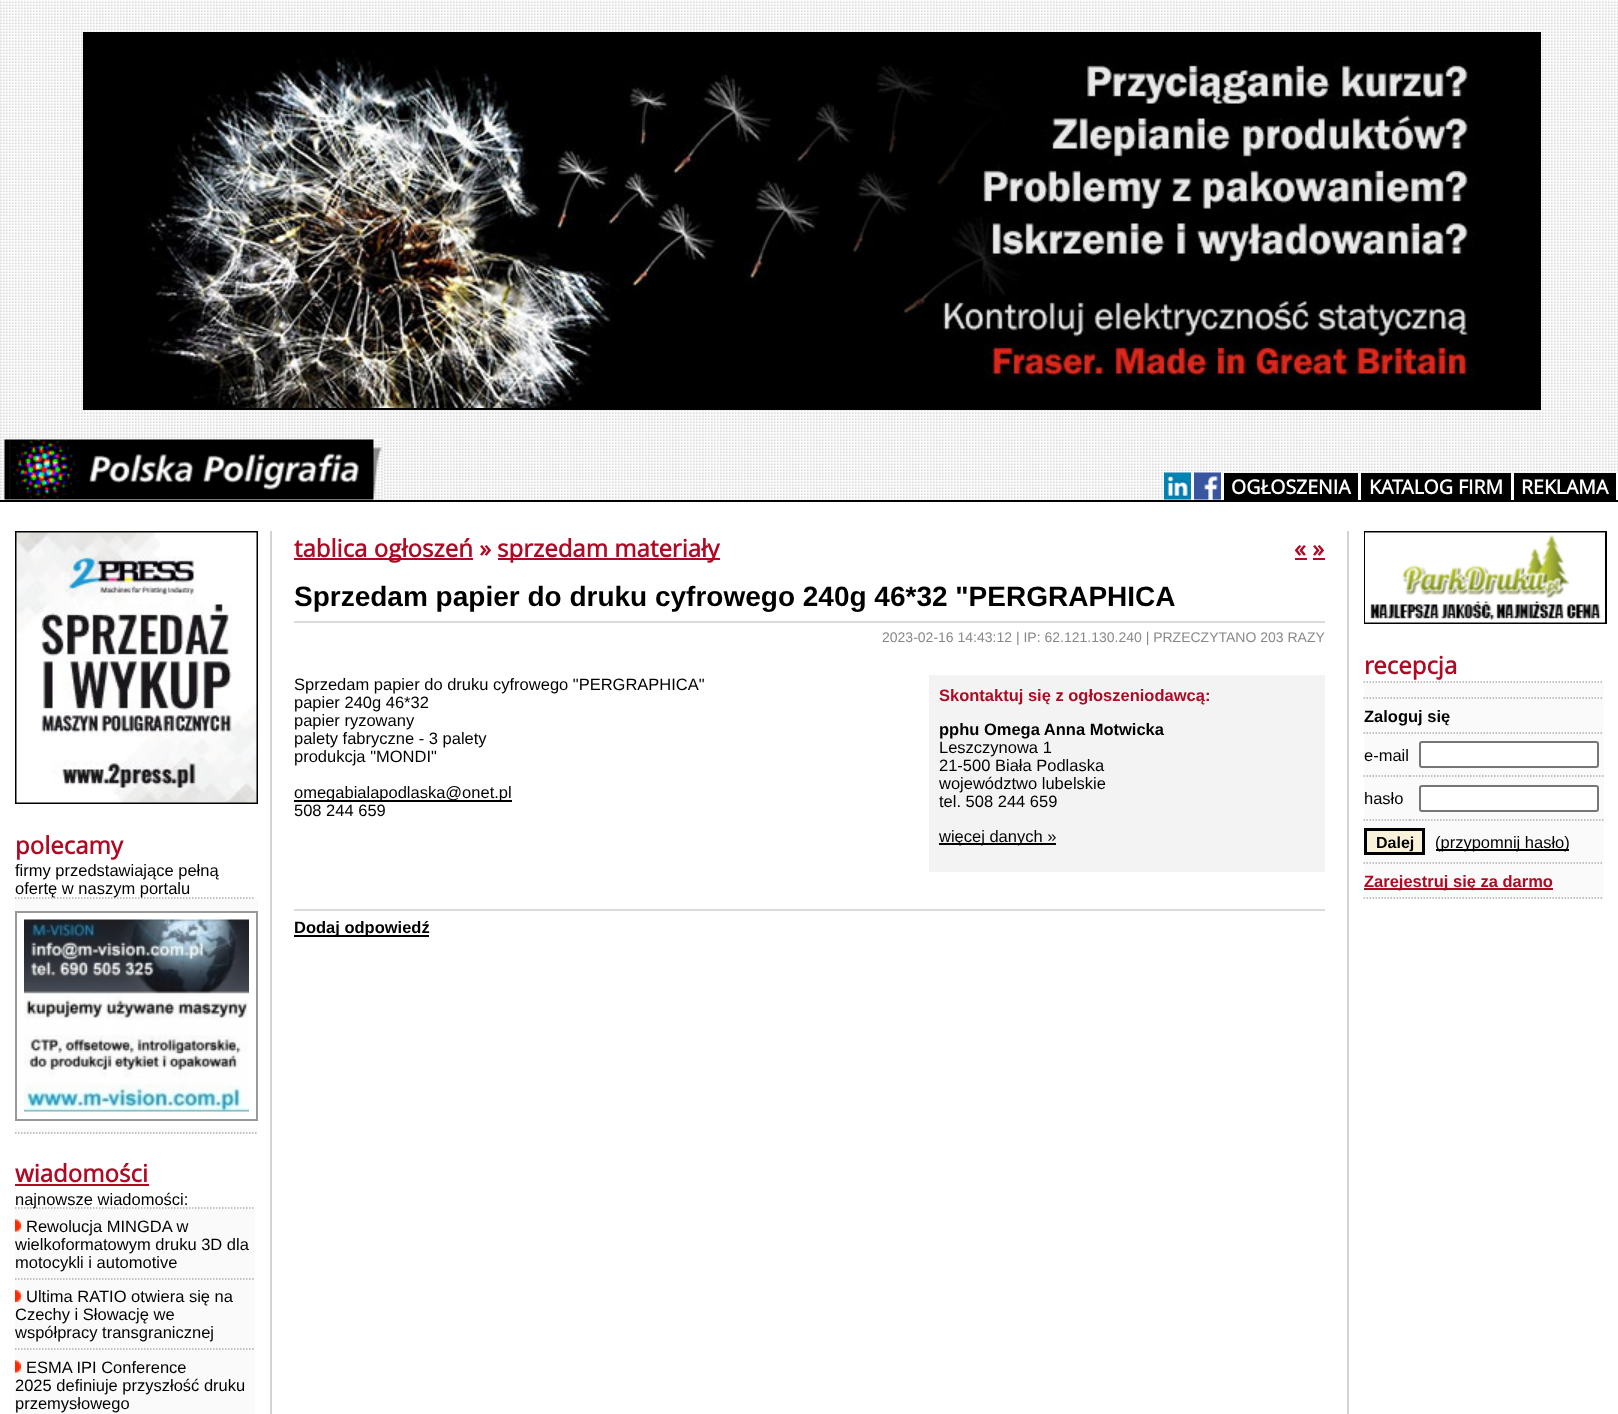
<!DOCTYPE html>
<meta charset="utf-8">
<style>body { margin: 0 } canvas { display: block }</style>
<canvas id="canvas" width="1618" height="1414"></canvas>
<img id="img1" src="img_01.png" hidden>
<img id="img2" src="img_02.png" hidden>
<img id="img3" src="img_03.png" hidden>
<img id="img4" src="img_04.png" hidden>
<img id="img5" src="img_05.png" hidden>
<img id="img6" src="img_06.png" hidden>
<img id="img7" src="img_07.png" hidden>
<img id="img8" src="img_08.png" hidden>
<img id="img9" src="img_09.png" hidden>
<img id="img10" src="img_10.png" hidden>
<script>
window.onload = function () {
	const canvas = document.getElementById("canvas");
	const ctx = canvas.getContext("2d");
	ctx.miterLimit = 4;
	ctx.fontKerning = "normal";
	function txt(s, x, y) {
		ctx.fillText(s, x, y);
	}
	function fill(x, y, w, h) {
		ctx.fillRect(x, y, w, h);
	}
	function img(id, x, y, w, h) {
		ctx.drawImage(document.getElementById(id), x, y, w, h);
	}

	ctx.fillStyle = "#FFFFFF";
	fill(0, 0, 1618, 1414);
	img("img1", 0, 0, 1618, 500);
	ctx.strokeStyle = "#000000";
	ctx.lineWidth = 2;
	ctx.strokeRect(84, 33, 1456, 376);
	img("img2", 85, 34, 1454, 374);
	img("img3", 4, 439, 379, 61);
	fill(1191, 473, 3, 27);
	img("img4", 1164, 472, 27, 28);
	fill(1221, 473, 3, 27);
	img("img5", 1194, 472, 27, 28);
	ctx.fillStyle = "#000000";
	fill(1224, 473, 134, 27);
	ctx.fillStyle = "#FFFFFF";
	fill(1358, 473, 3, 27);
	ctx.fillStyle = "#000000";
	fill(1361, 473, 150, 27);
	ctx.fillStyle = "#FFFFFF";
	fill(1511, 473, 3, 27);
	ctx.fillStyle = "#000000";
	fill(1514, 473, 102, 27);
	ctx.fillStyle = "#FFFFFF";
	fill(1616, 473, 2, 27);
	ctx.fillStyle = "#000000";
	fill(0, 500, 1618, 2);
	ctx.fillStyle = "#D3D3D3";
	fill(1347, 531, 2, 883);
	fill(270, 531, 2, 883);
	ctx.fillStyle = "#B00923";
	fill(294, 558, 179, 2);
	fill(498, 558, 222, 2);
	fill(1295, 558, 12, 2);
	fill(1313, 558, 12, 2);
	ctx.fillStyle = "#DBDBDB";
	fill(294, 621, 1031, 2);
	ctx.fillStyle = "#F3F3F3";
	fill(929, 675, 396, 197);
	ctx.fillStyle = "#000000";
	fill(939, 843, 117, 2);
	fill(294, 800, 218, 2);
	ctx.fillStyle = "#DBDBDB";
	fill(294, 909, 1031, 2);
	ctx.fillStyle = "#000000";
	fill(294, 935, 135, 2);
	ctx.strokeRect(1365, 532, 241, 91);
	img("img6", 1365, 532, 240, 91);
	ctx.beginPath();
	ctx.moveTo(1363.5, 682);
	ctx.lineTo(1603.5, 682);
	ctx.strokeStyle = "#B0B0B0";
	ctx.lineWidth = 1.5;
	ctx.setLineDash([1.5, 1.5]);
	ctx.stroke();
	ctx.fillStyle = "#FAFAFA";
	fill(1364, 683, 240, 216);
	ctx.beginPath();
	ctx.moveTo(1363.5, 698);
	ctx.lineTo(1603.5, 698);
	ctx.stroke();
	ctx.beginPath();
	ctx.moveTo(1363.5, 733);
	ctx.lineTo(1603.5, 733);
	ctx.stroke();
	ctx.beginPath();
	ctx.moveTo(1363.5, 776);
	ctx.lineTo(1410, 776);
	ctx.stroke();
	ctx.beginPath();
	ctx.moveTo(1410, 776);
	ctx.lineTo(1603.5, 776);
	ctx.stroke();
	ctx.fillStyle = "#FFFFFF";
	ctx.beginPath();
	ctx.roundRect(1420, 742, 178, 25, 2);
	ctx.fill();
	ctx.strokeStyle = "#767676";
	ctx.lineWidth = 2;
	ctx.setLineDash([]);
	ctx.stroke();
	ctx.beginPath();
	ctx.moveTo(1363.5, 820);
	ctx.lineTo(1410, 820);
	ctx.strokeStyle = "#B0B0B0";
	ctx.lineWidth = 1.5;
	ctx.setLineDash([1.5, 1.5]);
	ctx.stroke();
	ctx.beginPath();
	ctx.moveTo(1410, 820);
	ctx.lineTo(1603.5, 820);
	ctx.stroke();
	ctx.beginPath();
	ctx.roundRect(1420, 786, 178, 25, 2);
	ctx.fill();
	ctx.strokeStyle = "#767676";
	ctx.lineWidth = 2;
	ctx.setLineDash([]);
	ctx.stroke();
	ctx.beginPath();
	ctx.moveTo(1363.5, 863);
	ctx.lineTo(1603.5, 863);
	ctx.strokeStyle = "#B0B0B0";
	ctx.lineWidth = 1.5;
	ctx.setLineDash([1.5, 1.5]);
	ctx.stroke();
	ctx.fillStyle = "#F9F2DB";
	ctx.beginPath();
	ctx.rect(1365.5, 829.5, 58, 24);
	ctx.fill();
	ctx.strokeStyle = "#000000";
	ctx.lineWidth = 3;
	ctx.setLineDash([]);
	ctx.stroke();
	ctx.fillStyle = "#000000";
	fill(1436, 849, 133, 2);
	ctx.beginPath();
	ctx.moveTo(1363.5, 898);
	ctx.lineTo(1603.5, 898);
	ctx.strokeStyle = "#B0B0B0";
	ctx.lineWidth = 1.5;
	ctx.setLineDash([1.5, 1.5]);
	ctx.stroke();
	ctx.fillStyle = "#B00923";
	fill(1364, 888, 189, 2);
	ctx.strokeStyle = "#000000";
	ctx.lineWidth = 2;
	ctx.setLineDash([]);
	ctx.strokeRect(16, 532, 241, 271);
	img("img7", 16, 532, 241, 271);
	ctx.beginPath();
	ctx.moveTo(15, 898);
	ctx.lineTo(255, 898);
	ctx.strokeStyle = "#B0B0B0";
	ctx.lineWidth = 1.5;
	ctx.setLineDash([1.5, 1.5]);
	ctx.stroke();
	ctx.fillStyle = "#FAFAFA";
	fill(15, 899, 243, 235);
	ctx.beginPath();
	ctx.moveTo(15, 1133);
	ctx.lineTo(258, 1133);
	ctx.stroke();
	ctx.fillStyle = "#FFFFFF";
	ctx.beginPath();
	ctx.rect(16, 912, 241, 208);
	ctx.fill();
	ctx.strokeStyle = "#999999";
	ctx.lineWidth = 2;
	ctx.setLineDash([]);
	ctx.stroke();
	img("img8", 24, 919, 225, 193);
	fill(15, 1121, 243, 7);
	ctx.beginPath();
	ctx.moveTo(15, 1208);
	ctx.lineTo(255, 1208);
	ctx.strokeStyle = "#B0B0B0";
	ctx.lineWidth = 1.5;
	ctx.setLineDash([1.5, 1.5]);
	ctx.stroke();
	ctx.fillStyle = "#B00923";
	fill(15, 1184, 134, 2);
	ctx.fillStyle = "#FAFAFA";
	fill(15, 1209, 240, 205);
	ctx.beginPath();
	ctx.moveTo(15, 1279);
	ctx.lineTo(255, 1279);
	ctx.stroke();
	img("img9", 15, 1219, 6, 13);
	ctx.beginPath();
	ctx.moveTo(15, 1349);
	ctx.lineTo(255, 1349);
	ctx.stroke();
	img("img10", 15, 1290, 6, 12);
	img("img9", 15, 1360, 6, 13);
	ctx.font = "bold 19.5px Open Sans";
	ctx.fillStyle = "#FFFFFF";
	txt("OGŁOSZENIA", 1231, 494);
	txt("KATALOG FIRM", 1369, 494);
	txt("REKLAMA", 1521, 494);
	ctx.font = "bold 24px Open Sans";
	ctx.fillStyle = "#B00923";
	txt("tablica ogłoszeń »", 294, 557);
	txt("sprzedam materiały", 497, 557);
	txt("« »", 1294, 557);
	ctx.font = "bold 28px Liberation Sans";
	ctx.fillStyle = "#000000";
	txt("Sprzedam papier do druku cyfrowego 240g 46*32 \"PERGRAPHICA", 294, 606);
	ctx.font = "14px Liberation Sans";
	ctx.fillStyle = "#888888";
	txt("2023-02-16 14:43:12 | IP: 62.121.130.240 | PRZECZYTANO 203 RAZY", 882, 642);
	ctx.font = "16.5px Liberation Sans";
	ctx.fillStyle = "#000000";
	txt("Sprzedam papier do druku cyfrowego \"PERGRAPHICA\"", 294, 690);
	txt("papier 240g 46*32", 294, 708);
	ctx.font = "bold 16.5px Liberation Sans";
	ctx.fillStyle = "#B00923";
	txt("Skontaktuj się z ogłoszeniodawcą:", 939, 701);
	ctx.fillStyle = "#000000";
	txt("pphu Omega Anna Motwicka", 939, 735);
	ctx.font = "16.5px Liberation Sans";
	txt("Leszczynowa 1", 939, 753);
	txt("21-500 Biała Podlaska", 939, 771);
	txt("województwo lubelskie", 939, 789);
	txt("tel. 508 244 659", 939, 807);
	txt("więcej danych »", 939, 842);
	txt("papier ryzowany", 294, 726);
	txt("palety fabryczne - 3 palety", 294, 744);
	txt("produkcja \"MONDI\"", 294, 762);
	txt("omegabialapodlaska@onet.pl", 294, 798);
	txt("508 244 659", 294, 816);
	ctx.font = "bold 16.5px Liberation Sans";
	txt("Dodaj odpowiedź", 294, 933);
	ctx.font = "bold 24px Open Sans";
	ctx.fillStyle = "#B00923";
	txt("recepcja", 1364, 674);
	ctx.font = "bold 16.5px Liberation Sans";
	ctx.fillStyle = "#000000";
	txt("Zaloguj się", 1364, 722);
	ctx.font = "16.5px Liberation Sans";
	txt("e-mail", 1364, 761);
	txt("hasło", 1364, 804);
	ctx.font = "bold 16px Liberation Sans";
	txt("Dalej", 1376, 848);
	ctx.font = "16.5px Liberation Sans";
	txt("(przypomnij hasło)", 1435, 848);
	ctx.font = "bold 16.5px Liberation Sans";
	ctx.fillStyle = "#B00923";
	txt("Zarejestruj się za darmo", 1364, 887);
	ctx.font = "bold 24px Open Sans";
	txt("polecamy", 15, 854);
	ctx.font = "16.5px Liberation Sans";
	ctx.fillStyle = "#000000";
	txt("firmy przedstawiające pełną", 15, 876);
	txt("ofertę w naszym portalu", 15, 894);
	ctx.font = "bold 24px Open Sans";
	ctx.fillStyle = "#B00923";
	txt("wiadomości", 15, 1182);
	ctx.font = "16.5px Liberation Sans";
	ctx.fillStyle = "#000000";
	txt("najnowsze wiadomości:", 15, 1205);
	txt("Rewolucja MINGDA w", 26, 1232);
	txt("wielkoformatowym druku 3D dla", 15, 1250);
	txt("motocykli i automotive", 15, 1268);
	txt("Ultima RATIO otwiera się na", 26, 1302);
	txt("Czechy i Słowację we", 15, 1320);
	txt("współpracy transgranicznej", 15, 1338);
	txt("ESMA IPI Conference", 26, 1373);
	txt("2025 definiuje przyszłość druku", 15, 1391);
	txt("przemysłowego", 15, 1409);
};
</script>
